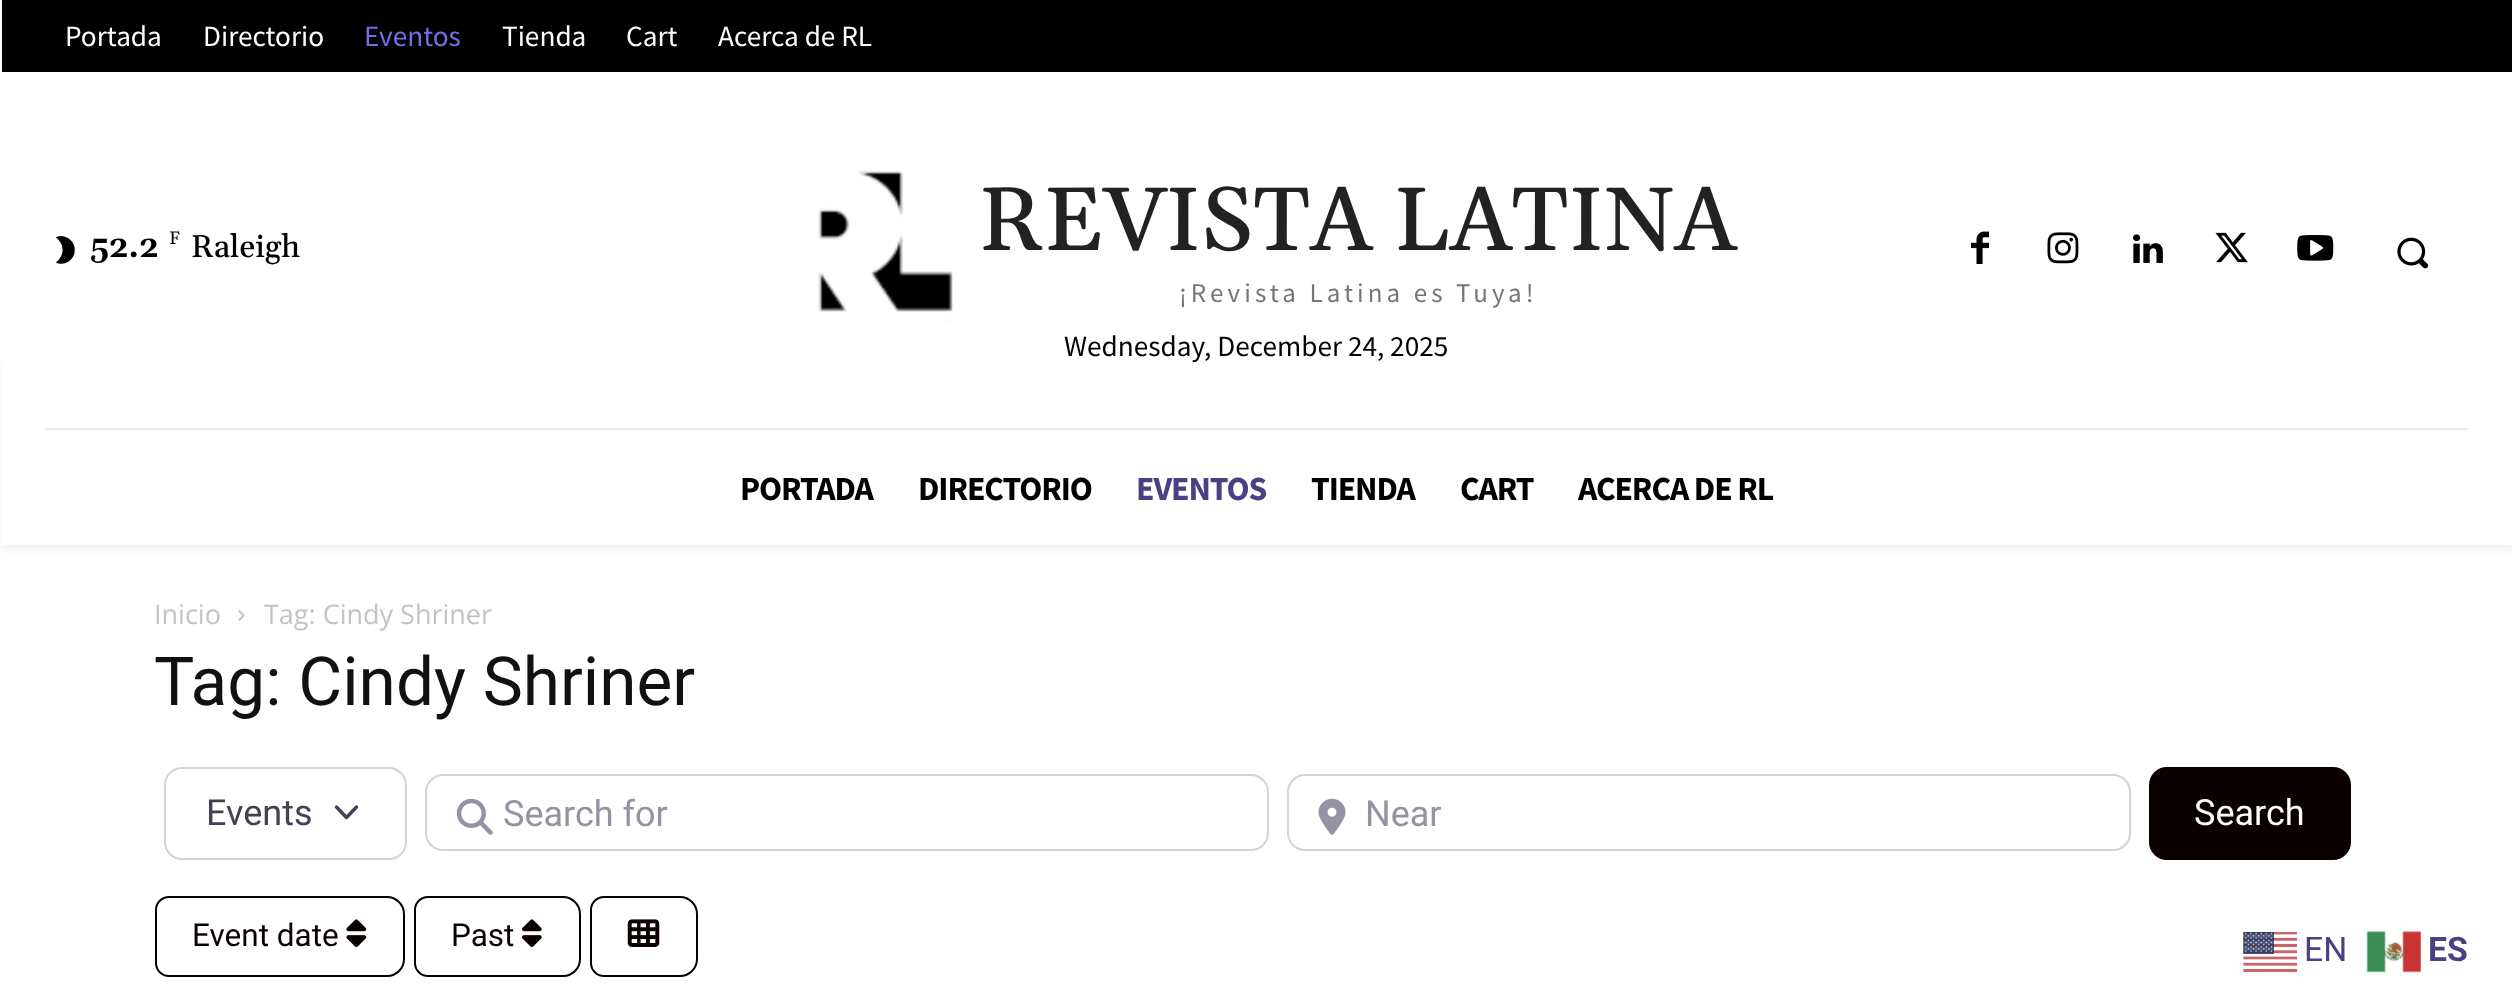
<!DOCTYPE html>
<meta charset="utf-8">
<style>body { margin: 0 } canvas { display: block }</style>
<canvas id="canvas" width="2512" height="1007"></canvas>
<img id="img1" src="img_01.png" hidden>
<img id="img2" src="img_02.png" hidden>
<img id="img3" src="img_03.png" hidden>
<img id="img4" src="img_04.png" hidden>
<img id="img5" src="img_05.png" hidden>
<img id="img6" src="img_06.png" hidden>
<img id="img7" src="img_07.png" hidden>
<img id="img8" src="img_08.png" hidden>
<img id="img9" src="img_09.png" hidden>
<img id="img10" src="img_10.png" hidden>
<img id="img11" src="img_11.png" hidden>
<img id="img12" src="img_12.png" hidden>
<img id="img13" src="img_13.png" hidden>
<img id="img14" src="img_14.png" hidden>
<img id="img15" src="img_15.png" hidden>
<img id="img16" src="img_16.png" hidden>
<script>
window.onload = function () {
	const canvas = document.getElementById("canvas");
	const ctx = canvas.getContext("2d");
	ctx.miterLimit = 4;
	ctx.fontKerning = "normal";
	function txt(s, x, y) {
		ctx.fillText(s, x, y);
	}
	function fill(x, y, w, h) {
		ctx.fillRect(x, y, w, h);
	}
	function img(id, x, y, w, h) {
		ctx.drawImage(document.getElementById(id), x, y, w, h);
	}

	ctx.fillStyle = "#FFFFFF";
	fill(0, 0, 2512, 1007);
	ctx.fillStyle = "#000000";
	fill(2, 0, 2510, 72);
	img("img1", 55, 236, 20, 28);
	img("img2", 818, 170, 135, 152);
	img("img3", 1971, 231, 18, 33);
	img("img4", 2047, 232, 32, 32);
	img("img5", 2133, 234, 30, 29);
	img("img6", 2215, 232, 33, 31);
	img("img7", 2297, 235, 37, 26);
	img("img8", 2397, 237, 32, 32);
	ctx.fillStyle = "#EAEAEA";
	fill(45, 428, 2423, 2);
	ctx.save();
	ctx.beginPath();
	ctx.moveTo(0, 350);
	ctx.lineTo(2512, 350);
	ctx.lineTo(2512, 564);
	ctx.lineTo(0, 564);
	ctx.closePath();
	ctx.moveTo(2, 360);
	ctx.lineTo(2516, 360);
	ctx.lineTo(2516, 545);
	ctx.lineTo(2, 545);
	ctx.closePath();
	ctx.clip("evenodd");
	ctx.fillStyle = "rgba(0, 0, 0, 0.06)";
	ctx.filter = "blur(4.5px)";
	ctx.beginPath();
	ctx.rect(2, 365, 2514, 184);
	ctx.fill();
	ctx.filter = "none";
	ctx.restore();
	img("img9", 238, 610, 7, 11);
	ctx.beginPath();
	ctx.moveTo(336.5, 807);
	ctx.lineTo(346.5, 817.5);
	ctx.lineTo(356.5, 807);
	ctx.strokeStyle = "#454056";
	ctx.lineWidth = 3.4;
	ctx.lineCap = "round";
	ctx.lineJoin = "round";
	ctx.stroke();
	ctx.beginPath();
	ctx.roundRect(165, 768, 241, 91, 17);
	ctx.strokeStyle = "#D5D2DC";
	ctx.lineWidth = 2;
	ctx.lineJoin = "miter";
	ctx.stroke();
	ctx.beginPath();
	ctx.roundRect(426, 775, 842, 75, 17);
	ctx.stroke();
	img("img10", 456, 798, 37, 37);
	ctx.beginPath();
	ctx.roundRect(1288, 775, 842, 75, 17);
	ctx.stroke();
	img("img11", 1318, 798, 28, 37);
	ctx.fillStyle = "#0A0000";
	ctx.beginPath();
	ctx.roundRect(2150, 768, 200, 91, 17);
	ctx.fill();
	ctx.strokeStyle = "#0A0000";
	ctx.stroke();
	ctx.beginPath();
	ctx.roundRect(156, 897, 248, 79, [13, 17, 17, 13]);
	ctx.stroke();
	img("img12", 346, 919, 21, 28);
	ctx.beginPath();
	ctx.roundRect(415, 897, 165, 79, [13, 17, 17, 13]);
	ctx.stroke();
	img("img13", 522, 919, 20, 28);
	ctx.beginPath();
	ctx.roundRect(591, 897, 106, 79, [13, 17, 17, 13]);
	ctx.stroke();
	img("img14", 627, 919, 33, 28);
	img("img15", 2243, 932, 54, 40);
	img("img16", 2366, 931, 55, 42);
	ctx.font = "29.25px Source Sans Pro";
	ctx.fillStyle = "#FFFFFF";
	txt("Portada", 65, 46);
	txt("Directorio", 203, 46);
	ctx.fillStyle = "#746EE5";
	txt("Eventos", 364, 46);
	ctx.fillStyle = "#FFFFFF";
	txt("Tienda", 502, 46);
	txt("Cart", 626, 46);
	txt("Acerca de RL", 718, 46);
	ctx.font = "bold 31.5px Gelasio";
	ctx.fillStyle = "#000000";
	txt("52.2", 90, 257);
	ctx.font = "18px Gelasio";
	txt("F", 169, 244);
	ctx.font = "500 31.5px Gelasio";
	txt("Raleigh", 191, 257);
	ctx.font = "500 90px Gelasio";
	ctx.fillStyle = "#222222";
	txt("REVISTA LATINA", 979, 250);
	ctx.letterSpacing = "4.05px";
	ctx.font = "27px Source Sans Pro";
	ctx.fillStyle = "#767676";
	txt("¡Revista Latina es Tuya!", 1179, 302);
	ctx.letterSpacing = "0px";
	ctx.font = "29.25px Source Sans Pro";
	ctx.fillStyle = "#000000";
	txt("Wednesday, December 24, 2025", 1064, 356);
	ctx.letterSpacing = "-1.1px";
	ctx.font = "bold 33.75px Source Sans Pro";
	txt("PORTADA", 740, 500);
	txt("DIRECTORIO", 918, 500);
	ctx.fillStyle = "#4C4084";
	txt("EVENTOS", 1136, 500);
	ctx.fillStyle = "#000000";
	txt("TIENDA", 1311, 500);
	txt("CART", 1460, 500);
	txt("ACERCA DE RL", 1578, 500);
	ctx.letterSpacing = "0px";
	ctx.font = "27px Open Sans";
	ctx.fillStyle = "#C3C3C3";
	txt("Inicio", 154, 624);
	txt("Tag: Cindy Shriner", 264, 624);
	ctx.font = "67.5px Roboto";
	ctx.fillStyle = "#111111";
	txt("Tag: Cindy Shriner", 154, 705);
	ctx.font = "36px Roboto";
	ctx.fillStyle = "#454056";
	txt("Events", 206, 825);
	ctx.fillStyle = "#9691A4";
	txt("Search for", 503, 826);
	txt("Near", 1365, 826);
	ctx.fillStyle = "#FFFFFF";
	txt("Search", 2194, 825);
	ctx.font = "31.5px Roboto";
	ctx.fillStyle = "#0A0000";
	txt("Event date", 192, 946);
	txt("Past", 451, 946);
	ctx.font = "33.75px Roboto";
	ctx.fillStyle = "#4C4084";
	txt("EN", 2304, 961);
	ctx.font = "bold 33.75px Roboto";
	txt("ES", 2428, 961);
};
</script>
